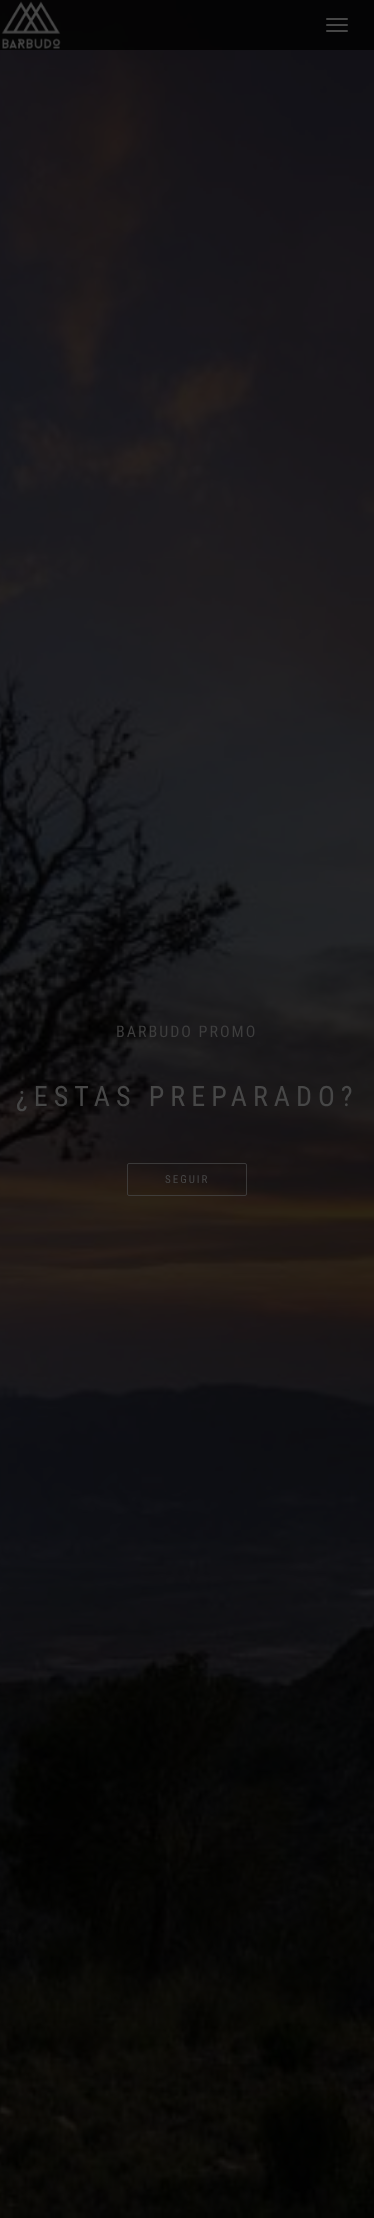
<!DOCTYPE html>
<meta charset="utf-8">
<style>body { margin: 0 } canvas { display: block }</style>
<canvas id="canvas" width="374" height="2218"></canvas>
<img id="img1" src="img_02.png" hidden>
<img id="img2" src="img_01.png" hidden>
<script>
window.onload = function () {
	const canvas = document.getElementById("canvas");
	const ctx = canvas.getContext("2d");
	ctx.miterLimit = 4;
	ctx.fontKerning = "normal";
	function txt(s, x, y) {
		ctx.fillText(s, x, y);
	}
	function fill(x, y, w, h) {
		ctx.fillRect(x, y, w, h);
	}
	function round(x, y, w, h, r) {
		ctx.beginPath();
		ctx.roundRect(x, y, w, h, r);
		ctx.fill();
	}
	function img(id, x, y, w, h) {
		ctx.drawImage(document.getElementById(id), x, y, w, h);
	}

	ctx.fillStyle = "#FFFFFF";
	fill(0, 0, 374, 2218);
	img("img1", 0, 0, 374, 2218);
	ctx.fillStyle = "rgba(3, 3, 3, 0.9)";
	fill(0, 0, 374, 50);
	img("img2", 1, 1, 60, 48);
	ctx.fillStyle = "#474747";
	round(326, 18, 22, 2, 1);
	round(326, 24, 22, 2, 1);
	round(326, 30, 22, 2, 1);
	ctx.beginPath();
	ctx.roundRect(127.5, 1163.5, 119, 32, 1.5);
	ctx.strokeStyle = "rgba(71, 71, 71, 0.75)";
	ctx.stroke();
	ctx.letterSpacing = "2px";
	ctx.font = "16px Roboto Condensed";
	ctx.fillStyle = "#3E3E3E";
	txt("BARBUDO PROMO", 116, 1037);
	ctx.letterSpacing = "6px";
	ctx.font = "28px Roboto Condensed";
	ctx.fillStyle = "#474747";
	txt("¿ESTAS PREPARADO?", 16, 1106);
	ctx.letterSpacing = "2px";
	ctx.font = "11px Roboto Condensed";
	txt("SEGUIR", 165, 1183);
};
</script>
